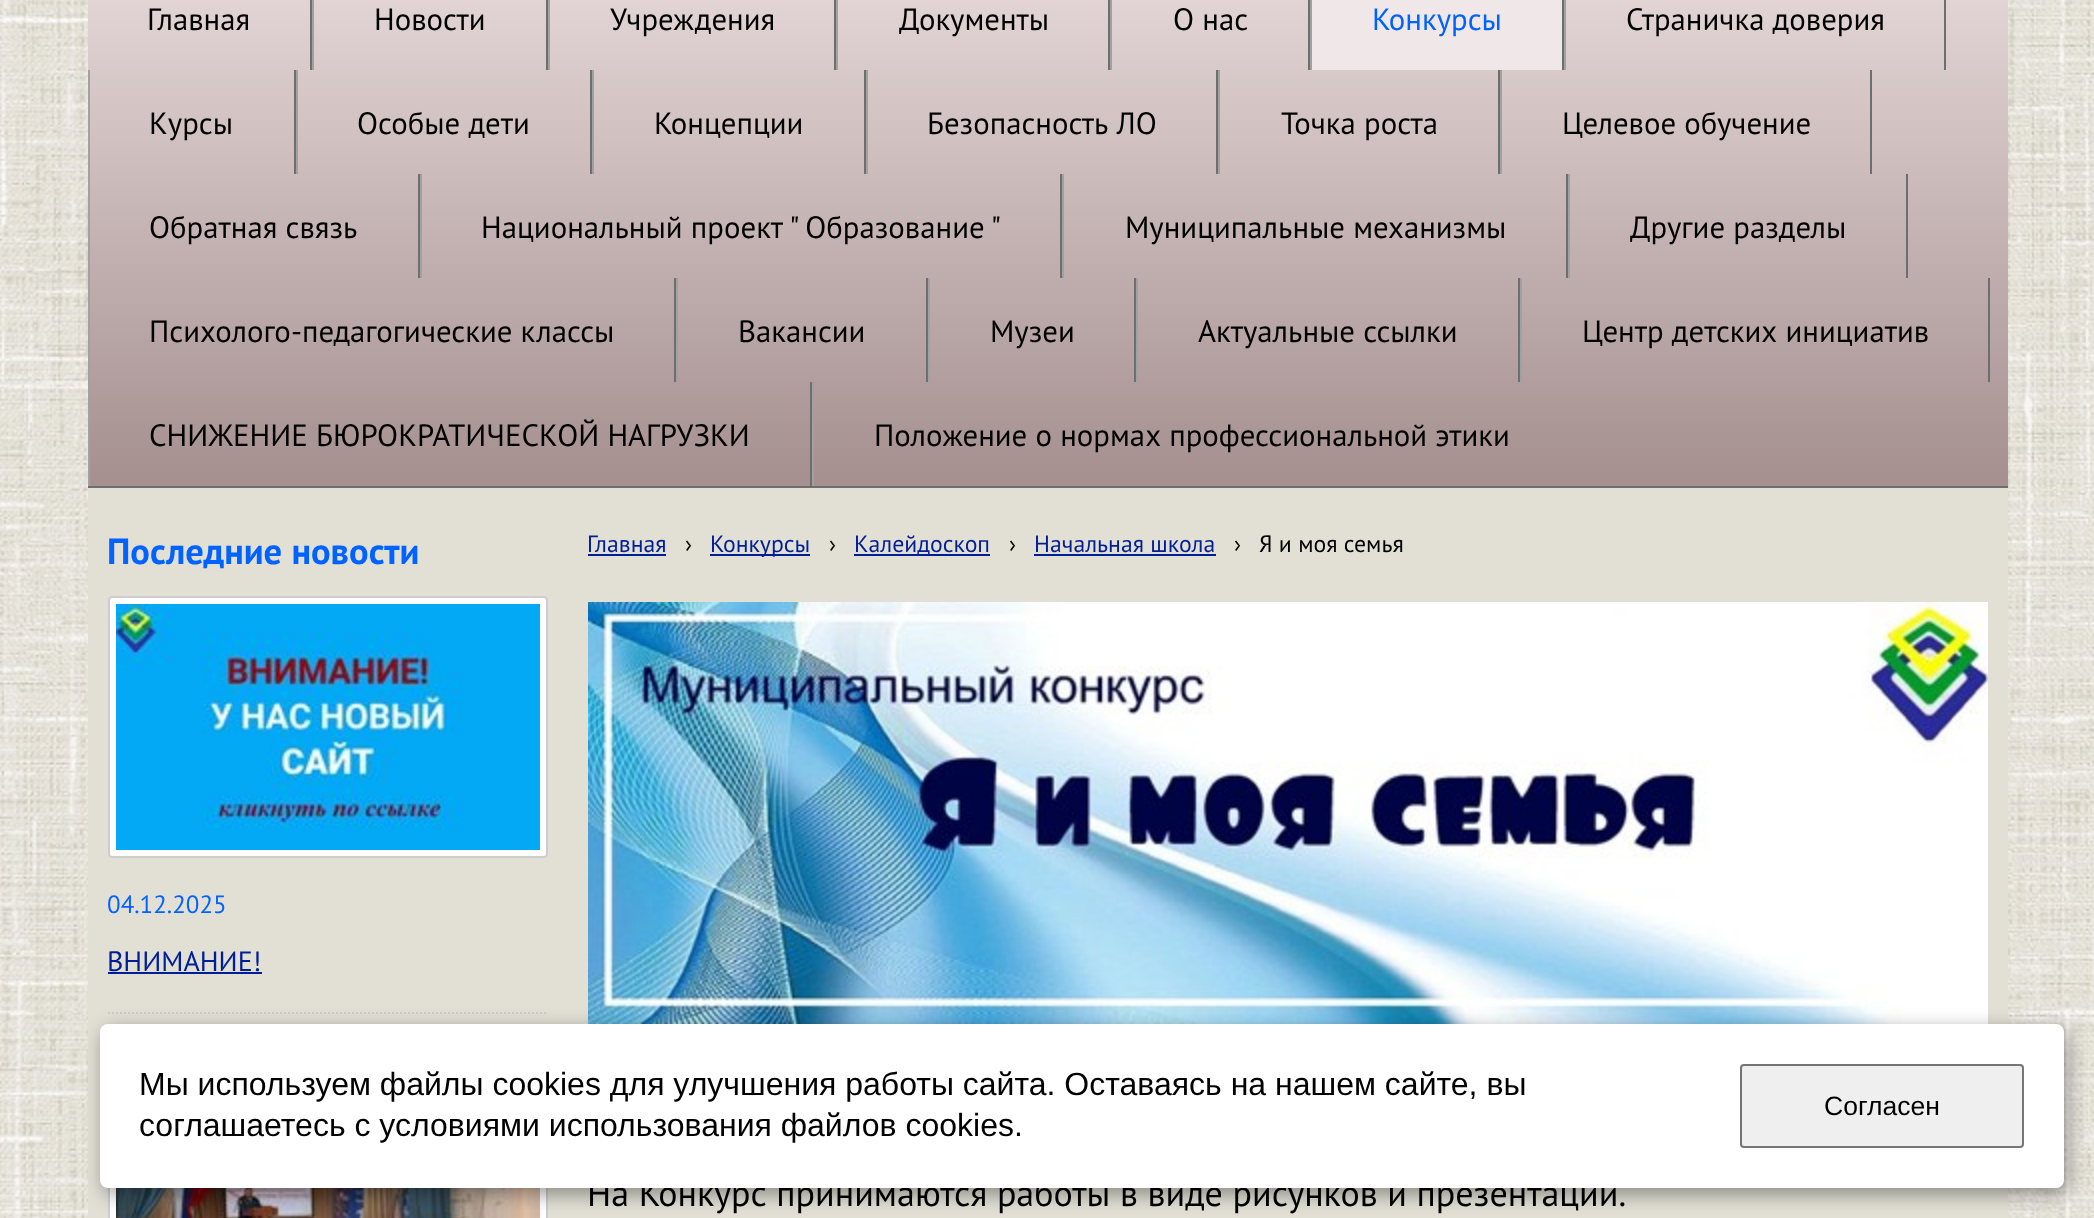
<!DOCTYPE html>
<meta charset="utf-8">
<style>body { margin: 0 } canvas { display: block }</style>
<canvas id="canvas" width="2094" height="1218"></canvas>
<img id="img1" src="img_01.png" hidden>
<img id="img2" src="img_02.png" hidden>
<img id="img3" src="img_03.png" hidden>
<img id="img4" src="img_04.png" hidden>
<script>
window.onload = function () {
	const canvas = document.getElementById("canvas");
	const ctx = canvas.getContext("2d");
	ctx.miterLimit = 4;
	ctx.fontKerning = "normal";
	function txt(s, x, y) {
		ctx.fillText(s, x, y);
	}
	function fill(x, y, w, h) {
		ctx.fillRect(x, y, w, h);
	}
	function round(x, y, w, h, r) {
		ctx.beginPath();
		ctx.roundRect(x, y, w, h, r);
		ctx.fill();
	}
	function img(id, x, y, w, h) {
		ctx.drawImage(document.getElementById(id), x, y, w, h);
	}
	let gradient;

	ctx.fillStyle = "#FFFFFF";
	fill(0, 0, 2094, 1218);
	img("img1", 0, 0, 2094, 1218);
	gradient = ctx.createLinearGradient(1048, -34, 1048, 486);
	gradient.addColorStop(0, "#E6D9D9");
	gradient.addColorStop(1, "#A58F8F");
	ctx.fillStyle = gradient;
	fill(88, 0, 1920, 486);
	ctx.fillStyle = "#6E6E6E";
	fill(88, 486, 1920, 2);
	fill(310, 0, 2, 70);
	fill(546, 0, 2, 70);
	ctx.fillStyle = "#A1A1A1";
	fill(312, 0, 2, 70);
	ctx.fillStyle = "#6E6E6E";
	fill(834, 0, 2, 70);
	ctx.fillStyle = "#A1A1A1";
	fill(548, 0, 2, 70);
	ctx.fillStyle = "#6E6E6E";
	fill(1108, 0, 2, 70);
	ctx.fillStyle = "#A1A1A1";
	fill(836, 0, 2, 70);
	ctx.fillStyle = "#6E6E6E";
	fill(1308, 0, 2, 70);
	ctx.fillStyle = "#A1A1A1";
	fill(1110, 0, 2, 70);
	ctx.fillStyle = "#6E6E6E";
	fill(1562, 0, 2, 70);
	ctx.fillStyle = "#A1A1A1";
	fill(1310, 0, 2, 70);
	ctx.fillStyle = "#F0E8E8";
	fill(1312, 0, 250, 70);
	ctx.fillStyle = "#6E6E6E";
	fill(1944, 0, 2, 70);
	ctx.fillStyle = "#A1A1A1";
	fill(1564, 0, 2, 70);
	ctx.fillStyle = "#6E6E6E";
	fill(294, 70, 2, 104);
	ctx.fillStyle = "#A1A1A1";
	fill(88, 70, 2, 416);
	ctx.fillStyle = "#6E6E6E";
	fill(590, 70, 2, 104);
	ctx.fillStyle = "#A1A1A1";
	fill(296, 70, 2, 104);
	ctx.fillStyle = "#6E6E6E";
	fill(864, 70, 2, 104);
	ctx.fillStyle = "#A1A1A1";
	fill(592, 70, 2, 104);
	ctx.fillStyle = "#6E6E6E";
	fill(1216, 70, 2, 104);
	ctx.fillStyle = "#A1A1A1";
	fill(866, 70, 2, 104);
	ctx.fillStyle = "#6E6E6E";
	fill(1498, 70, 2, 104);
	ctx.fillStyle = "#A1A1A1";
	fill(1218, 70, 2, 104);
	ctx.fillStyle = "#6E6E6E";
	fill(1870, 70, 2, 104);
	ctx.fillStyle = "#A1A1A1";
	fill(1500, 70, 2, 104);
	ctx.fillStyle = "#6E6E6E";
	fill(418, 174, 2, 104);
	fill(1060, 174, 2, 104);
	ctx.fillStyle = "#A1A1A1";
	fill(420, 174, 2, 104);
	ctx.fillStyle = "#6E6E6E";
	fill(1566, 174, 2, 104);
	ctx.fillStyle = "#A1A1A1";
	fill(1062, 174, 2, 104);
	ctx.fillStyle = "#6E6E6E";
	fill(1906, 174, 2, 104);
	ctx.fillStyle = "#A1A1A1";
	fill(1568, 174, 2, 104);
	ctx.fillStyle = "#6E6E6E";
	fill(674, 278, 2, 104);
	fill(926, 278, 2, 104);
	ctx.fillStyle = "#A1A1A1";
	fill(676, 278, 2, 104);
	ctx.fillStyle = "#6E6E6E";
	fill(1134, 278, 2, 104);
	ctx.fillStyle = "#A1A1A1";
	fill(928, 278, 2, 104);
	ctx.fillStyle = "#6E6E6E";
	fill(1518, 278, 2, 104);
	ctx.fillStyle = "#A1A1A1";
	fill(1136, 278, 2, 104);
	ctx.fillStyle = "#6E6E6E";
	fill(1988, 278, 2, 104);
	ctx.fillStyle = "#A1A1A1";
	fill(1520, 278, 2, 104);
	ctx.fillStyle = "#6E6E6E";
	fill(810, 382, 2, 104);
	ctx.fillStyle = "#A1A1A1";
	fill(812, 382, 2, 104);
	ctx.fillStyle = "#E2E0D5";
	fill(88, 488, 1920, 730);
	ctx.beginPath();
	ctx.moveTo(108, 1013);
	ctx.lineTo(548, 1013);
	ctx.strokeStyle = "#CDCDCD";
	ctx.lineWidth = 2;
	ctx.setLineDash([2, 2]);
	ctx.stroke();
	ctx.fillStyle = "#FFFFFF";
	ctx.beginPath();
	ctx.roundRect(109, 597, 438, 260, 3);
	ctx.fill();
	ctx.setLineDash([]);
	ctx.stroke();
	img("img2", 116, 604, 424, 246);
	ctx.fillStyle = "#001F96";
	fill(108, 972, 154, 2);
	ctx.fillStyle = "#FFFFFF";
	fill(110, 1188, 436, 30);
	ctx.strokeRect(109, 1045, 438, 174);
	img("img3", 116, 1188, 424, 30);
	ctx.fillStyle = "#001F96";
	fill(588, 554, 78, 2);
	fill(710, 554, 100, 2);
	fill(854, 554, 136, 2);
	fill(1034, 554, 182, 2);
	img("img4", 588, 602, 1400, 422);
	ctx.fillStyle = "rgba(0, 0, 0, 0.4)";
	ctx.filter = "blur(10px)";
	ctx.beginPath();
	ctx.roundRect(104, 1030, 1964, 164, 8);
	ctx.fill();
	ctx.filter = "none";
	ctx.font = "30.8px PT Sans";
	ctx.fillStyle = "#000000";
	txt("Главная", 147, 30);
	txt("Новости", 374, 30);
	txt("Учреждения", 610, 30);
	txt("Документы", 899, 30);
	txt("О нас", 1173, 30);
	ctx.fillStyle = "#0063FF";
	txt("Конкурсы", 1372, 30);
	ctx.fillStyle = "#000000";
	txt("Страничка доверия", 1626, 30);
	txt("Курсы", 149, 134);
	txt("Особые дети", 357, 134);
	txt("Концепции", 654, 134);
	txt("Безопасность ЛО", 927, 134);
	txt("Точка роста", 1281, 134);
	txt("Целевое обучение", 1562, 134);
	txt("Обратная связь", 149, 238);
	txt("Национальный проект \" Образование \"", 481, 238);
	txt("Муниципальные механизмы", 1125, 238);
	txt("Другие разделы", 1630, 238);
	txt("Психолого-педагогические классы", 149, 342);
	txt("Вакансии", 738, 342);
	txt("Музеи", 990, 342);
	txt("Актуальные ссылки", 1198, 342);
	txt("Центр детских инициатив", 1582, 342);
	txt("СНИЖЕНИЕ БЮРОКРАТИЧЕСКОЙ НАГРУЗКИ", 149, 446);
	txt("Положение о нормах профессиональной этики", 874, 446);
	ctx.font = "bold 36.5px PT Sans";
	ctx.fillStyle = "#0063FF";
	txt("Последние новости", 107, 564);
	ctx.font = "25px PT Sans";
	txt("04.12.2025", 107, 913);
	ctx.font = "28px PT Sans";
	ctx.fillStyle = "#001F96";
	txt("ВНИМАНИЕ!", 107, 971);
	ctx.font = "23.75px PT Sans";
	txt("Главная", 587, 552);
	ctx.fillStyle = "#000000";
	txt("›", 685, 552);
	ctx.fillStyle = "#001F96";
	txt("Конкурсы", 710, 552);
	ctx.fillStyle = "#000000";
	txt("›", 829, 552);
	ctx.fillStyle = "#001F96";
	txt("Калейдоскоп", 854, 552);
	ctx.fillStyle = "#000000";
	txt("›", 1009, 552);
	ctx.fillStyle = "#001F96";
	txt("Начальная школа", 1034, 552);
	ctx.fillStyle = "#000000";
	txt("›", 1234, 552);
	txt("Я и моя семья", 1259, 552);
	ctx.font = "36px PT Sans";
	txt("На Конкурс принимаются работы в виде рисунков и презентаций.", 587, 1206);
	ctx.fillStyle = "#FFFFFF";
	round(100, 1024, 1964, 164, 8);
	ctx.font = "32px Liberation Sans";
	ctx.fillStyle = "#000000";
	txt("Мы используем файлы cookies для улучшения работы сайта. Оставаясь на нашем сайте, вы", 139, 1095);
	txt("соглашаетесь с условиями использования файлов cookies.", 139, 1136);
	ctx.fillStyle = "#EFEFEF";
	ctx.beginPath();
	ctx.roundRect(1741, 1065, 282, 82, 3);
	ctx.fill();
	ctx.strokeStyle = "#767676";
	ctx.stroke();
	ctx.font = "26.5px Liberation Sans";
	ctx.fillStyle = "#000000";
	txt("Согласен", 1824, 1115);
};
</script>
